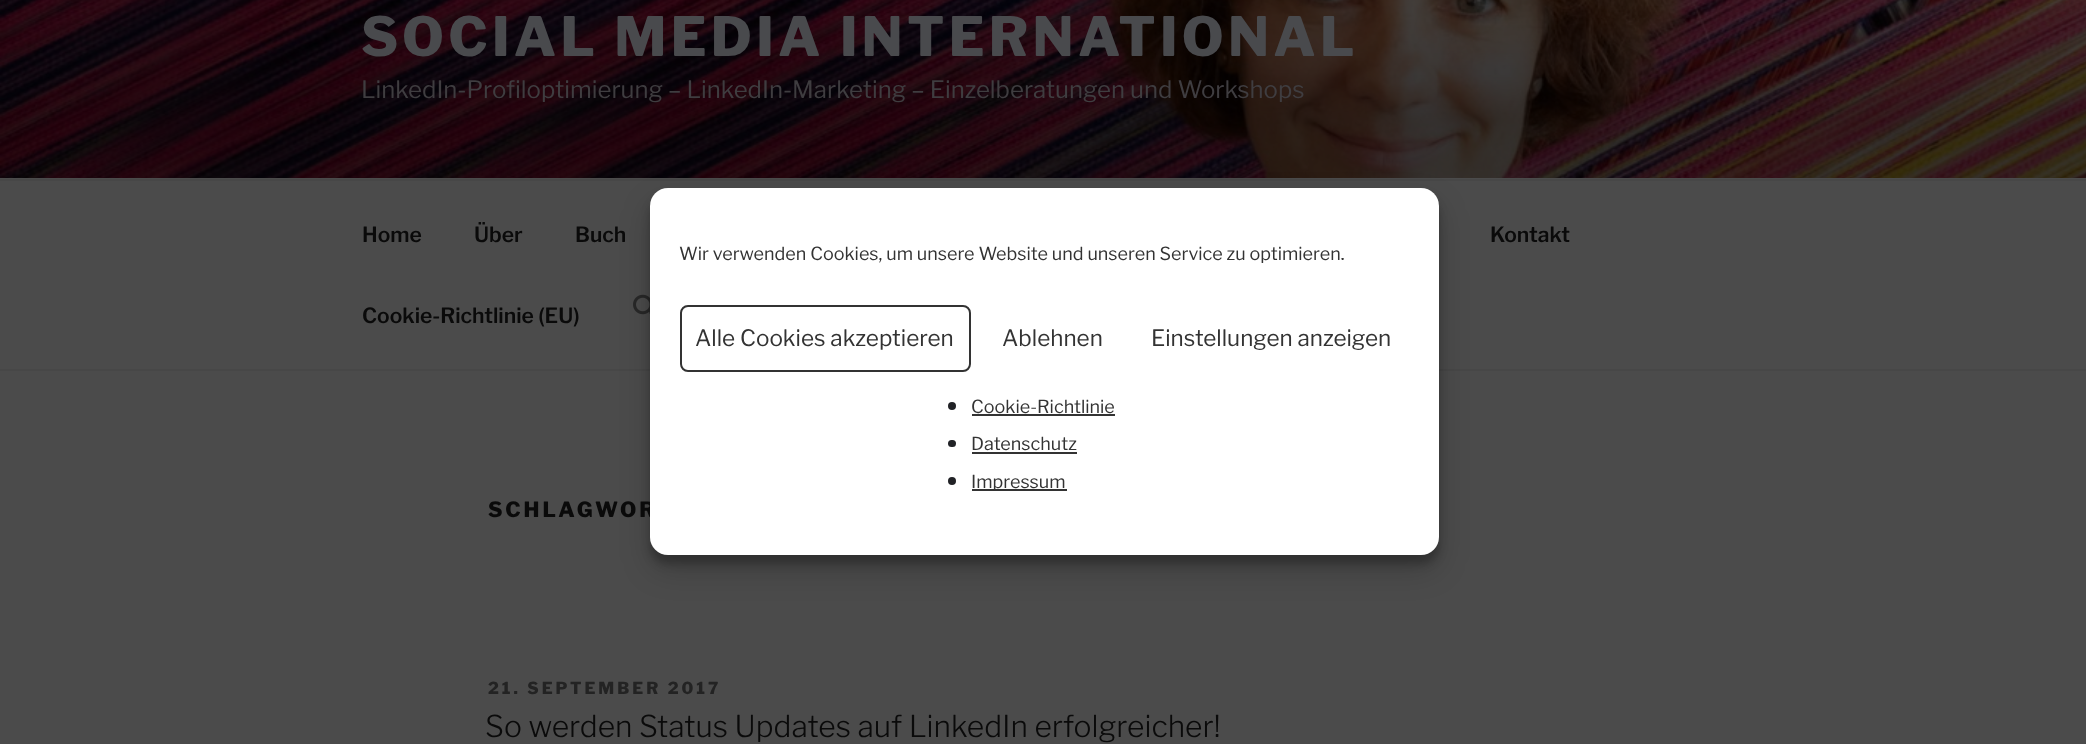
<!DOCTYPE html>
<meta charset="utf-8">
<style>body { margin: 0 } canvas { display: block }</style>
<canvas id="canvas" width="2086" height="744"></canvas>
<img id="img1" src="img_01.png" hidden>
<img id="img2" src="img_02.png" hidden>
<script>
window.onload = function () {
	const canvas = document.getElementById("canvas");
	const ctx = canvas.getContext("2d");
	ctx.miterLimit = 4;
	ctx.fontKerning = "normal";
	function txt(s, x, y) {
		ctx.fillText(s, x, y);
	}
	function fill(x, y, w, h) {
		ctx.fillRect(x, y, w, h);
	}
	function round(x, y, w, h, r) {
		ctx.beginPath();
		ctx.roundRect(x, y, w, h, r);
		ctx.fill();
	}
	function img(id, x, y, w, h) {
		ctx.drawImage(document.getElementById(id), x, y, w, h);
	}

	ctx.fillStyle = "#4B4B4B";
	fill(0, 0, 2086, 744);
	img("img1", 0, 0, 2086, 178);
	ctx.fillStyle = "#474747";
	fill(0, 179, 2086, 2);
	fill(0, 369, 2086, 2);
	img("img2", 633, 294, 17, 21);
	ctx.fillStyle = "rgba(0, 0, 0, 0.23)";
	ctx.filter = "blur(4.5px)";
	ctx.beginPath();
	ctx.roundRect(650, 197, 789, 367, 18);
	ctx.fill();
	ctx.filter = "none";
	ctx.fillStyle = "rgba(0, 0, 0, 0.19)";
	ctx.filter = "blur(15px)";
	ctx.beginPath();
	ctx.roundRect(650, 203, 789, 367, 18);
	ctx.fill();
	ctx.filter = "none";
	ctx.letterSpacing = "4.3px";
	ctx.font = "100 54px Libre Franklin";
	ctx.fillStyle = "#494A4D";
	txt("SOCIAL MEDIA INTERNATIONAL", 361, 56);
	ctx.letterSpacing = "0px";
	ctx.font = "100 24px 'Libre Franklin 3'";
	ctx.fillStyle = "#3F3D40";
	txt("LinkedIn-Profiloptimierung – LinkedIn-Marketing – Einzelberatungen und Workshops", 361, 98);
	ctx.font = "100 21px 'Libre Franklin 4'";
	ctx.fillStyle = "#0A0A0A";
	txt("Home", 362, 242);
	txt("Über", 474, 242);
	txt("Buch", 575, 242);
	txt("Kontakt", 1490, 242);
	txt("Cookie-Richtlinie (EU)", 362, 323);
	ctx.letterSpacing = "3px";
	ctx.font = "100 21px Libre Franklin";
	txt("SCHLAGWOR", 488, 517);
	ctx.font = "100 16.5px Libre Franklin";
	ctx.fillStyle = "#232323";
	txt("21. SEPTEMBER 2017", 488, 694);
	ctx.letterSpacing = "0px";
	ctx.font = "100 30px 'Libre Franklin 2'";
	ctx.fillStyle = "#0A0A0A";
	txt("So werden Status Updates auf LinkedIn erfolgreicher!", 485, 737);
	ctx.fillStyle = "#FFFFFF";
	round(650, 188, 789, 367, 18);
	ctx.font = "100 18px 'Libre Franklin 3'";
	ctx.fillStyle = "#333333";
	txt("Wir verwenden Cookies, um unsere Website und unseren Service zu optimieren.", 679, 260);
	ctx.beginPath();
	ctx.roundRect(681, 306, 289, 65, 7);
	ctx.strokeStyle = "#333333";
	ctx.lineWidth = 2;
	ctx.stroke();
	ctx.font = "100 22.5px 'Libre Franklin 3'";
	txt("Alle Cookies akzeptieren", 695, 346);
	txt("Ablehnen", 1002, 346);
	txt("Einstellungen anzeigen", 1151, 346);
	ctx.fillStyle = "#212226";
	ctx.beginPath();
	ctx.arc(952, 406, 4, 0, Math.PI * 2);
	ctx.fill();
	ctx.font = "100 18px 'Libre Franklin 3'";
	ctx.fillStyle = "#333333";
	txt("Cookie-Richtlinie", 971, 413);
	fill(972, 414, 143, 2);
	ctx.fillStyle = "#212226";
	round(948, 440, 8, 7, 3.5);
	ctx.fillStyle = "#333333";
	txt("Datenschutz", 971, 450);
	fill(972, 452, 105, 2);
	ctx.fillStyle = "#212226";
	ctx.beginPath();
	ctx.arc(952, 481, 4, 0, Math.PI * 2);
	ctx.fill();
	ctx.fillStyle = "#333333";
	fill(972, 489, 95, 2);
	txt("Impressum", 971, 488);
};
</script>
